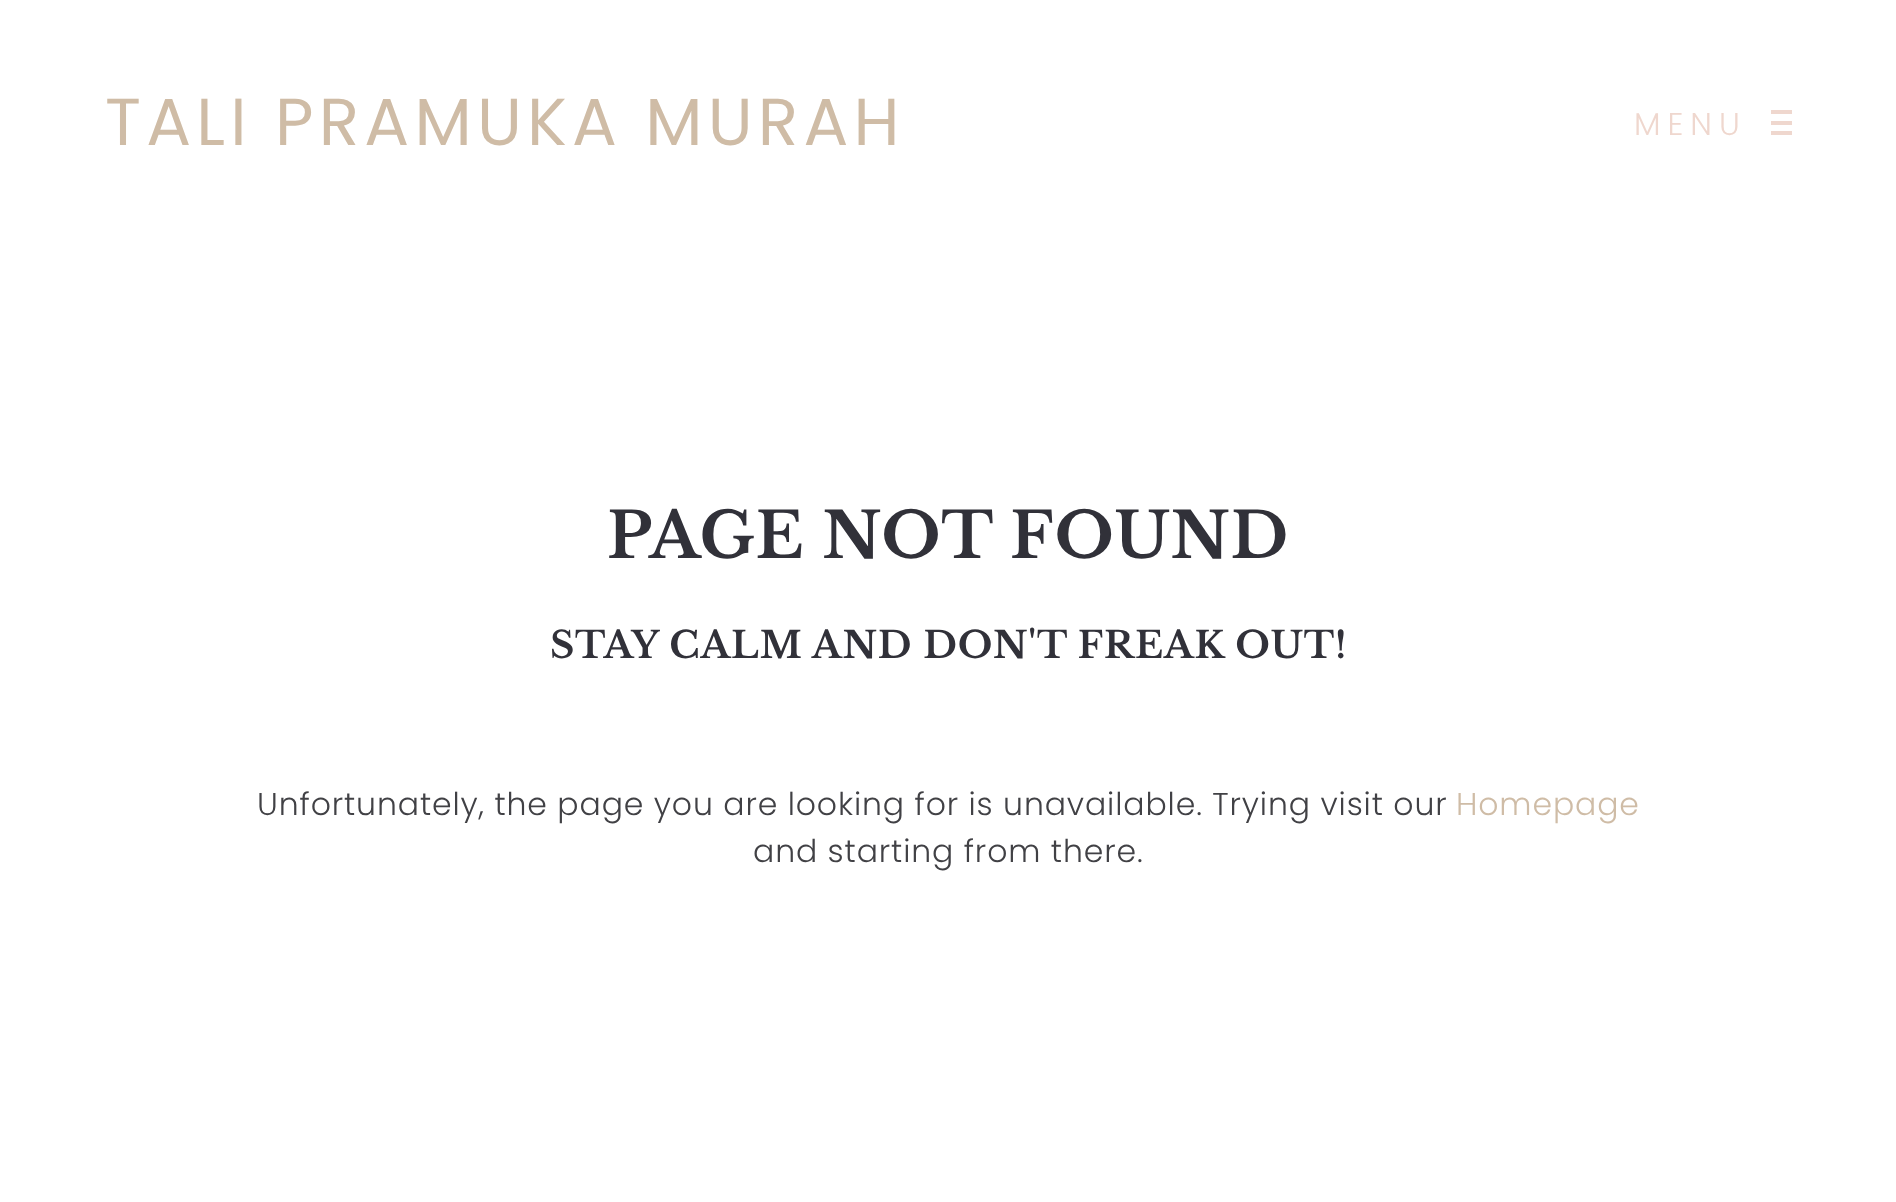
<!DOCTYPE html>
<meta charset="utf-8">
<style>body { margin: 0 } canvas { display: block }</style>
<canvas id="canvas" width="1896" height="1202"></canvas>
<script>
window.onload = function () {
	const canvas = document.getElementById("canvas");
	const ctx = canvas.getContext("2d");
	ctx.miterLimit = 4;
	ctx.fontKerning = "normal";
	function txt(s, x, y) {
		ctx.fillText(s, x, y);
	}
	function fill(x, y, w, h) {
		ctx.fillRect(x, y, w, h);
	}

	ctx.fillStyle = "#FFFFFF";
	fill(0, 0, 1896, 1202);
	ctx.fillStyle = "#EFD7CE";
	fill(1771, 110, 21, 4);
	fill(1771, 121, 21, 4);
	fill(1771, 131, 21, 4);
	ctx.letterSpacing = "5.25px";
	ctx.font = "66.5px Poppins";
	ctx.fillStyle = "#CFBCA6";
	txt("TALI PRAMUKA MURAH", 105, 145);
	ctx.letterSpacing = "7px";
	ctx.font = "300 31.5px Poppins";
	ctx.fillStyle = "#EFD7CE";
	txt("MENU", 1634, 135);
	ctx.letterSpacing = "0.88px";
	ctx.font = "bold 63px Libre Baskerville";
	ctx.fillStyle = "#313139";
	txt("PAGE NOT FOUND", 607, 558);
	ctx.font = "bold 36.75px Libre Baskerville";
	txt("STAY CALM AND DON'T FREAK OUT!", 550, 658);
	ctx.font = "300 31.5px Poppins";
	ctx.fillStyle = "#414145";
	txt("Unfortunately, the page you are looking for is unavailable. Trying visit our", 257, 815);
	ctx.fillStyle = "#CFBCA6";
	txt("Homepage", 1456, 815);
	ctx.fillStyle = "#414145";
	txt("and starting from there.", 753, 862);
};
</script>
